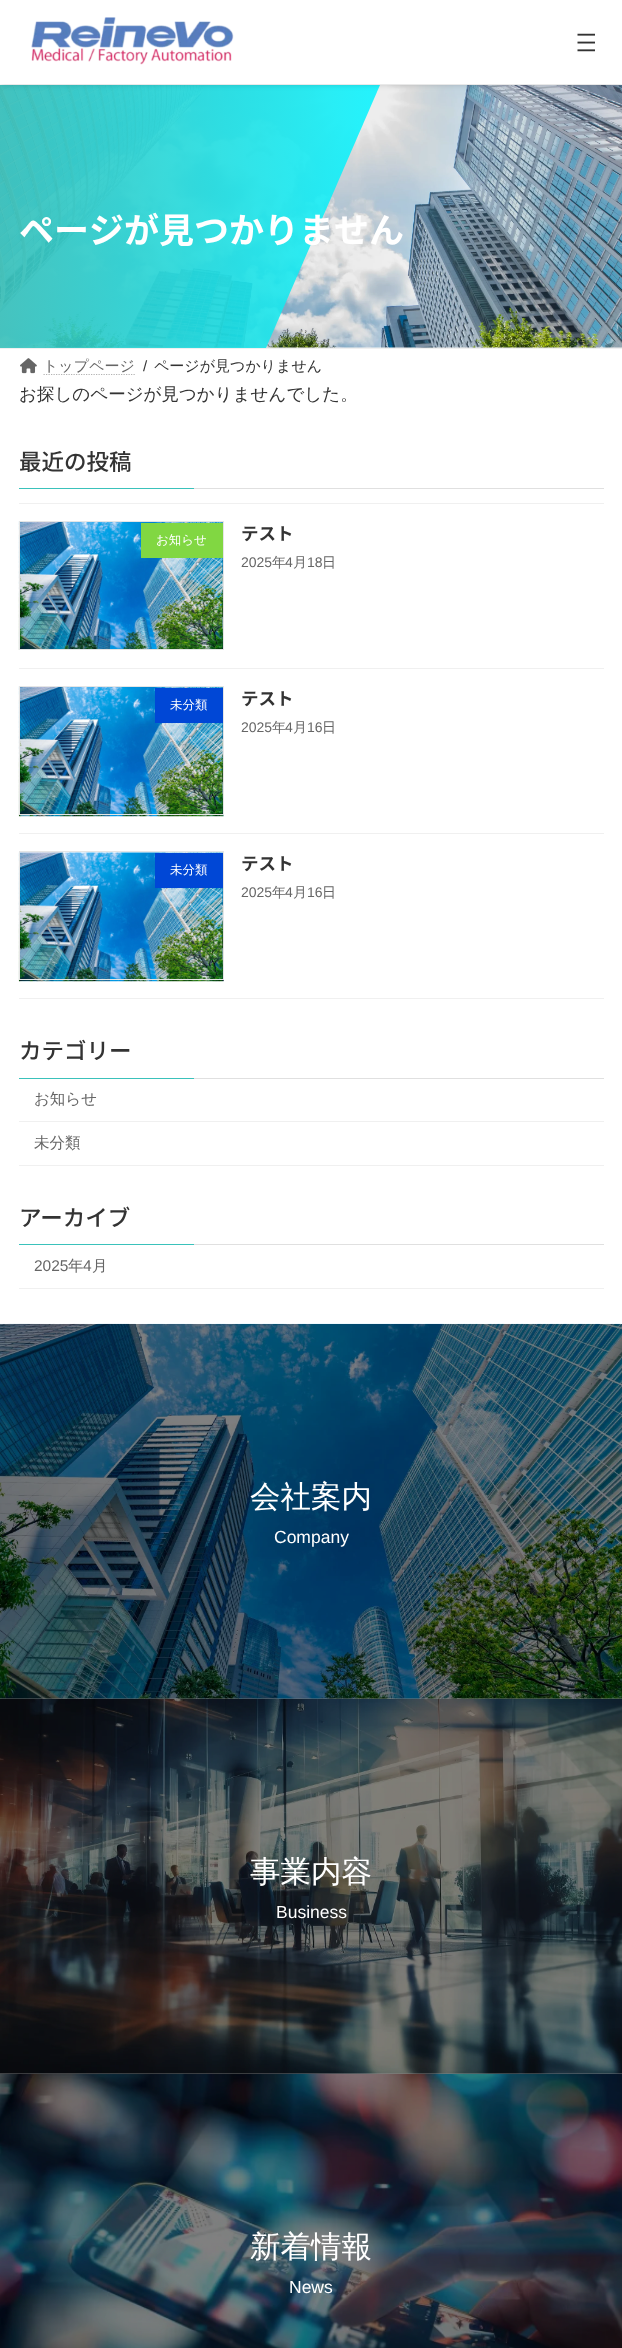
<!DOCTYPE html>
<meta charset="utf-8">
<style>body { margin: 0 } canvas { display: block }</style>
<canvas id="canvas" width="622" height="2348"></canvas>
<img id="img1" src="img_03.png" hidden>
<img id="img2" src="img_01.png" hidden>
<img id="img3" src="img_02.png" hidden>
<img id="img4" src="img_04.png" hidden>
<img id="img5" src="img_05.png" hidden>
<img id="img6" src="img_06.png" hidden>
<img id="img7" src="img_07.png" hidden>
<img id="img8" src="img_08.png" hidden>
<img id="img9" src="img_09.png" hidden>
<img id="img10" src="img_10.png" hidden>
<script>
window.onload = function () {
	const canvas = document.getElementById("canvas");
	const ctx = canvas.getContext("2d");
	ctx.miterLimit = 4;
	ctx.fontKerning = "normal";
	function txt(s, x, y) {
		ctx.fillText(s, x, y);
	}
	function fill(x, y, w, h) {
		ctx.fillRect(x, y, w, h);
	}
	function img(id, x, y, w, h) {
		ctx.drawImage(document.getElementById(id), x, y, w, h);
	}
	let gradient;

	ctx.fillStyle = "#FFFFFF";
	fill(0, 0, 622, 2348);
	ctx.fillStyle = "#F2F2F2";
	fill(0, 347, 622, 1);
	ctx.fillStyle = "#808080";
	fill(0, 2073, 622, 1);
	fill(0, 1698, 622, 1);
	img("img1", 0, 85, 622, 263);
	gradient = ctx.createLinearGradient(0, 216, 380, 216);
	gradient.addColorStop(0, "rgba(58, 194, 187, 0.9)");
	gradient.addColorStop(1, "rgba(14, 244, 255, 0.9)");
	ctx.fillStyle = gradient;
	ctx.beginPath();
	ctx.moveTo(0, 85);
	ctx.lineTo(0, 348);
	ctx.lineTo(266, 348);
	ctx.lineTo(380, 85);
	ctx.closePath();
	ctx.fill();
	ctx.fillStyle = "rgba(0, 0, 0, 0.2)";
	ctx.filter = "blur(3px)";
	ctx.beginPath();
	ctx.rect(0, 0, 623, 84);
	ctx.fill();
	ctx.filter = "none";
	ctx.fillStyle = "#FFFFFF";
	fill(0, 0, 622, 84);
	img("img2", 31, 17, 203, 48);
	img("img3", 577, 33, 18, 19);
	ctx.fillStyle = "#F0F0F0";
	fill(0, 348, 622, 1);
	img("img4", 20, 358, 17, 16);
	ctx.beginPath();
	ctx.moveTo(43.5, 374.5);
	ctx.lineTo(135.5, 374.5);
	ctx.strokeStyle = "#B3B3B3";
	ctx.lineWidth = 1.2;
	ctx.setLineDash([1.25, 1.25]);
	ctx.stroke();
	ctx.fillStyle = "#E0E0E0";
	fill(194, 488, 410, 1);
	ctx.fillStyle = "#3AC2BB";
	fill(19, 488, 175, 1);
	ctx.fillStyle = "#F0F0F0";
	fill(19, 503, 585, 1);
	fill(19, 668, 585, 1);
	img("img5", 18, 521, 205, 129);
	ctx.strokeStyle = "#E5E5E5";
	ctx.lineWidth = 1;
	ctx.setLineDash([]);
	ctx.strokeRect(19.5, 521.5, 204, 128);
	ctx.fillStyle = "#81D742";
	fill(141, 523, 82, 35);
	ctx.fillStyle = "#F0F0F0";
	fill(19, 833, 585, 1);
	img("img6", 18, 686, 206, 131);
	ctx.strokeRect(19.5, 686.5, 204, 128);
	ctx.fillStyle = "#0047D6";
	fill(155, 688, 68, 35);
	ctx.fillStyle = "#F0F0F0";
	fill(19, 998, 585, 1);
	img("img7", 18, 852, 206, 130);
	ctx.strokeRect(19.5, 851.5, 204, 128);
	ctx.fillStyle = "#0047D6";
	fill(155, 853, 68, 35);
	ctx.fillStyle = "#E0E0E0";
	fill(194, 1078, 410, 1);
	ctx.fillStyle = "#3AC2BB";
	fill(19, 1078, 175, 1);
	ctx.fillStyle = "#F0F0F0";
	fill(19, 1121, 585, 1);
	fill(19, 1165, 585, 1);
	ctx.fillStyle = "#E0E0E0";
	fill(194, 1244, 410, 1);
	ctx.fillStyle = "#3AC2BB";
	fill(19, 1244, 175, 1);
	ctx.fillStyle = "#F0F0F0";
	fill(19, 1288, 585, 1);
	img("img8", 0, 1323, 622, 376);
	img("img9", 0, 1698, 622, 376);
	img("img10", 0, 2073, 622, 275);
	ctx.font = "bold 35px Noto Sans JP";
	ctx.fillStyle = "#FFFFFF";
	txt("ページが見つかりません", 19, 243);
	ctx.font = "500 15px WenQuanYi Zen Hei";
	ctx.fillStyle = "#666666";
	txt("トップページ", 43, 371);
	ctx.font = "15px Liberation Sans";
	ctx.fillStyle = "#333333";
	txt("/", 143, 371);
	ctx.font = "500 15px WenQuanYi Zen Hei";
	txt("ページが見つかりません", 154, 371);
	ctx.font = "500 17.5px WenQuanYi Zen Hei";
	txt("お探しのページが見つかりませんでした。", 19, 400);
	ctx.font = "100 22.5px Noto Sans JP";
	txt("最近の投稿", 19, 470);
	ctx.font = "500 12.5px WenQuanYi Zen Hei";
	ctx.fillStyle = "#FFFFFF";
	txt("お知らせ", 156, 544);
	ctx.font = "bold 17.5px Noto Sans JP";
	ctx.fillStyle = "#333333";
	txt("テスト", 241, 540);
	ctx.font = "14px Liberation Sans";
	ctx.fillStyle = "#666666";
	txt("2025", 241, 567);
	ctx.font = "500 14px WenQuanYi Zen Hei";
	txt("年", 272, 567);
	ctx.font = "14px Liberation Sans";
	txt("4", 285, 567);
	ctx.font = "500 14px WenQuanYi Zen Hei";
	txt("月", 293, 567);
	ctx.font = "14px Liberation Sans";
	txt("18", 307, 567);
	ctx.font = "500 14px WenQuanYi Zen Hei";
	txt("日", 322, 567);
	ctx.font = "500 12.5px WenQuanYi Zen Hei";
	ctx.fillStyle = "#FFFFFF";
	txt("未分類", 170, 709);
	ctx.font = "bold 17.5px Noto Sans JP";
	ctx.fillStyle = "#333333";
	txt("テスト", 241, 705);
	ctx.font = "14px Liberation Sans";
	ctx.fillStyle = "#666666";
	txt("2025", 241, 732);
	ctx.font = "500 14px WenQuanYi Zen Hei";
	txt("年", 272, 732);
	ctx.font = "14px Liberation Sans";
	txt("4", 285, 732);
	ctx.font = "500 14px WenQuanYi Zen Hei";
	txt("月", 293, 732);
	ctx.font = "14px Liberation Sans";
	txt("16", 307, 732);
	ctx.font = "500 14px WenQuanYi Zen Hei";
	txt("日", 322, 732);
	ctx.font = "500 12.5px WenQuanYi Zen Hei";
	ctx.fillStyle = "#FFFFFF";
	txt("未分類", 170, 874);
	ctx.font = "bold 17.5px Noto Sans JP";
	ctx.fillStyle = "#333333";
	txt("テスト", 241, 870);
	ctx.font = "14px Liberation Sans";
	ctx.fillStyle = "#666666";
	txt("2025", 241, 897);
	ctx.font = "500 14px WenQuanYi Zen Hei";
	txt("年", 272, 897);
	ctx.font = "14px Liberation Sans";
	txt("4", 285, 897);
	ctx.font = "500 14px WenQuanYi Zen Hei";
	txt("月", 293, 897);
	ctx.font = "14px Liberation Sans";
	txt("16", 307, 897);
	ctx.font = "500 14px WenQuanYi Zen Hei";
	txt("日", 322, 897);
	ctx.font = "100 22.5px Noto Sans JP";
	ctx.fillStyle = "#333333";
	txt("カテゴリー", 19, 1059);
	ctx.font = "500 15.5px WenQuanYi Zen Hei";
	ctx.fillStyle = "#666666";
	txt("お知らせ", 34, 1104);
	txt("未分類", 34, 1148);
	ctx.font = "100 22.5px Noto Sans JP";
	ctx.fillStyle = "#333333";
	txt("アーカイブ", 19, 1226);
	ctx.font = "15.5px Liberation Sans";
	ctx.fillStyle = "#666666";
	txt("2025", 34, 1271);
	ctx.font = "500 15.5px WenQuanYi Zen Hei";
	txt("年", 68, 1271);
	ctx.font = "15.5px Liberation Sans";
	txt("4", 83, 1271);
	ctx.font = "500 15.5px WenQuanYi Zen Hei";
	txt("月", 92, 1271);
	ctx.font = "500 30.5px WenQuanYi Zen Hei";
	ctx.fillStyle = "#FFFFFF";
	txt("会社案内", 250, 1507);
	ctx.font = "17.5px Liberation Sans";
	txt("Company", 274, 1543);
	ctx.font = "500 30.5px WenQuanYi Zen Hei";
	txt("事業内容", 250, 1882);
	ctx.font = "17.5px Liberation Sans";
	txt("Business", 276, 1918);
	ctx.font = "500 30.5px WenQuanYi Zen Hei";
	txt("新着情報", 250, 2257);
	ctx.font = "17.5px Liberation Sans";
	txt("News", 289, 2293);
};
</script>
